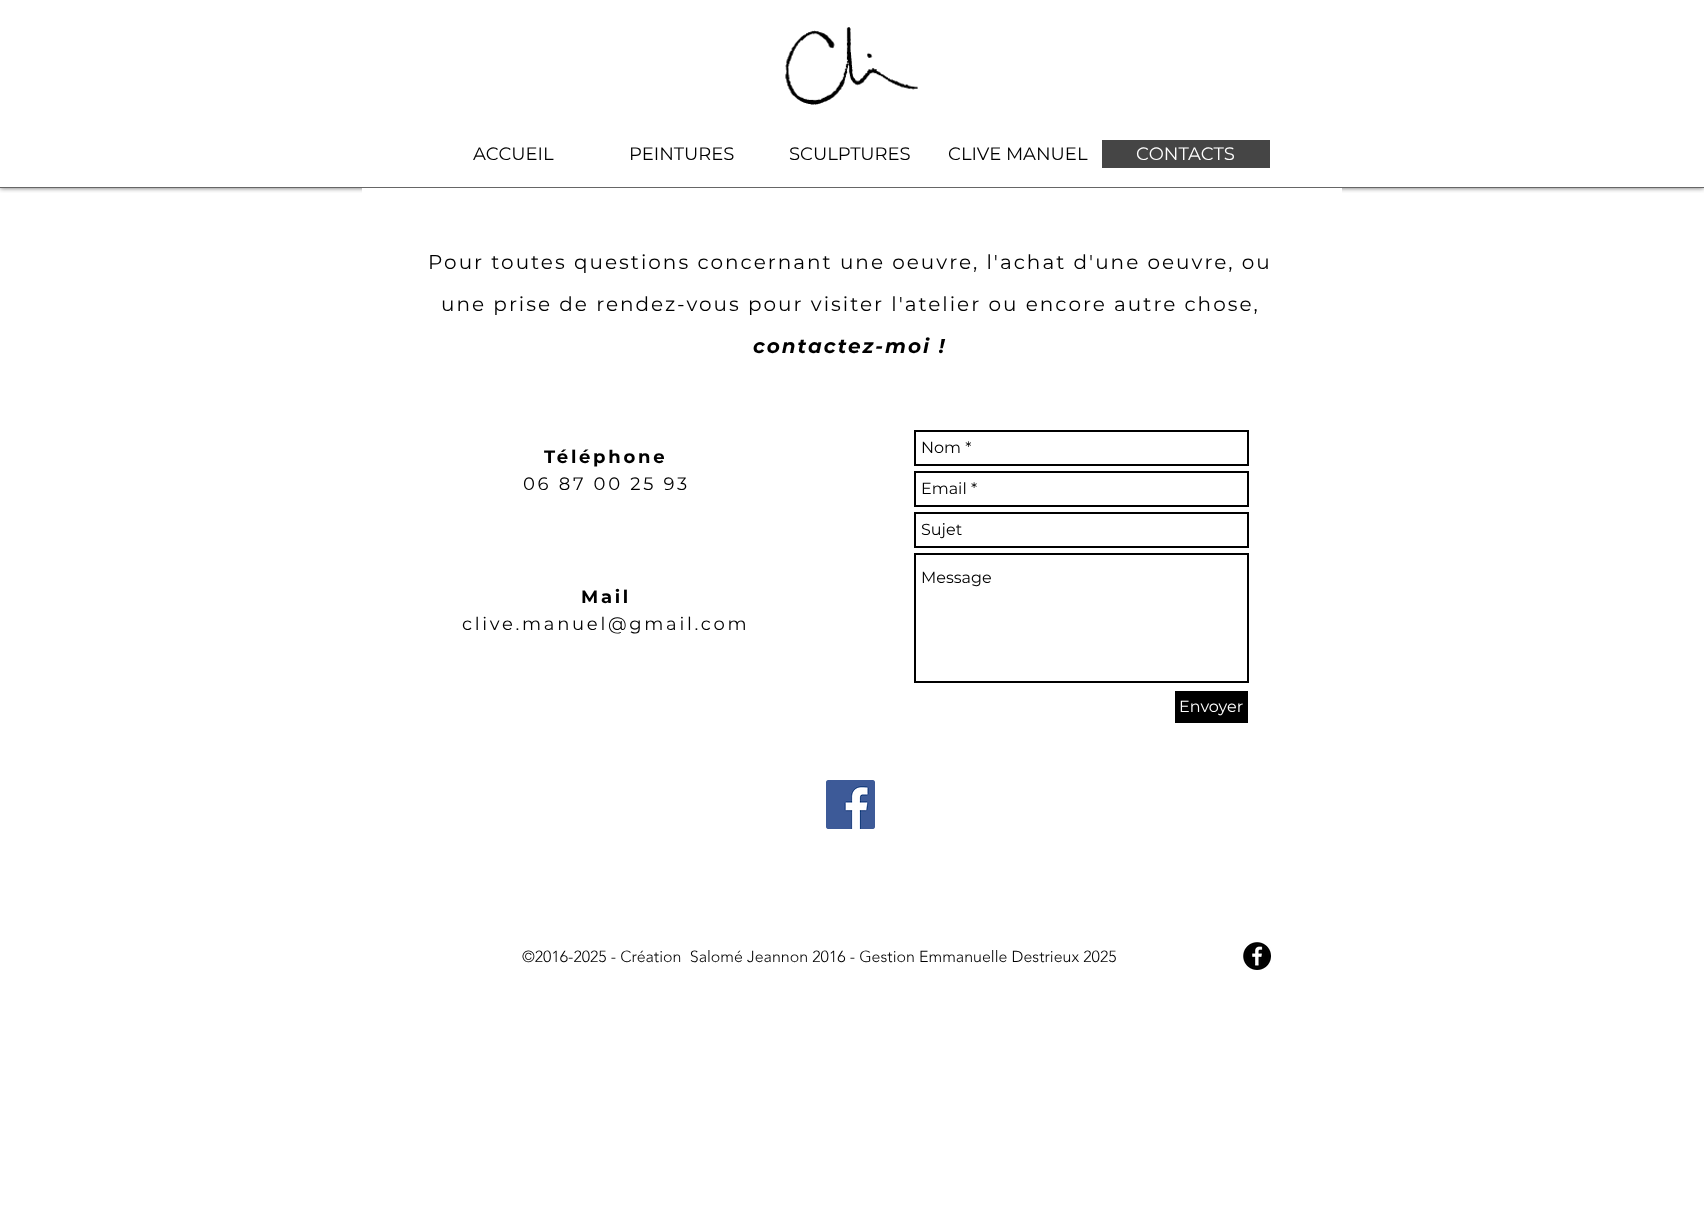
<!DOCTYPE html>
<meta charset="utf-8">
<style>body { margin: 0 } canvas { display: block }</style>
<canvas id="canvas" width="1704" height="1211"></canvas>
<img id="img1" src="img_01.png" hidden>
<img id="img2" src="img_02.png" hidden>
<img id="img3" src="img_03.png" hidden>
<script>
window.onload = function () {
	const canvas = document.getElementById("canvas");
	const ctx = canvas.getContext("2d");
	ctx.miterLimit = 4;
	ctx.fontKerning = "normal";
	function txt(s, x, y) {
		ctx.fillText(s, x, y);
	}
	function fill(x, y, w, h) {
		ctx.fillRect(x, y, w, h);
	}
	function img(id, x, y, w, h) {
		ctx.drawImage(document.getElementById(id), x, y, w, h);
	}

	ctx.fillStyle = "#FFFFFF";
	fill(0, 0, 1704, 1211);
	ctx.save();
	ctx.beginPath();
	ctx.rect(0, 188, 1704, 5);
	ctx.clip();
	ctx.fillStyle = "rgba(0, 0, 0, 0.6)";
	ctx.filter = "blur(2.5px)";
	ctx.beginPath();
	ctx.rect(0, 0, 1704, 188);
	ctx.fill();
	ctx.filter = "none";
	ctx.restore();
	ctx.fillStyle = "#666666";
	fill(0, 187, 1704, 1);
	img("img1", 785, 27, 133, 78);
	ctx.fillStyle = "#454545";
	fill(1102, 140, 168, 28);
	ctx.fillStyle = "#FFFFFF";
	fill(362, 188, 980, 5);
	ctx.strokeStyle = "#000000";
	ctx.lineWidth = 2;
	ctx.strokeRect(915, 431, 333, 34);
	ctx.strokeRect(915, 472, 333, 34);
	ctx.strokeRect(915, 513, 333, 34);
	ctx.strokeRect(915, 554, 333, 128);
	ctx.fillStyle = "#000000";
	fill(1175, 691, 73, 32);
	img("img2", 826, 780, 49, 49);
	img("img3", 1243, 942, 28, 28);
	ctx.font = "18px Montserrat";
	txt("ACCUEIL", 473, 160);
	txt("PEINTURES", 629, 160);
	txt("SCULPTURES", 789, 160);
	txt("CLIVE MANUEL", 948, 160);
	ctx.fillStyle = "#FFFFFF";
	txt("CONTACTS", 1136, 160);
	ctx.letterSpacing = "2px";
	ctx.font = "20px Montserrat";
	ctx.fillStyle = "#000000";
	txt("Pour toutes questions concernant une oeuvre, l'achat d'une oeuvre, ou", 428, 269);
	txt("une prise de rendez-vous pour visiter l'atelier ou encore autre chose,", 441, 311);
	ctx.font = "italic bold 20px Montserrat";
	txt("contactez-moi !", 753, 353);
	ctx.letterSpacing = "2.7px";
	ctx.font = "bold 18px Montserrat";
	txt("Téléphone", 544, 463);
	ctx.font = "18px Montserrat";
	txt("06 87 00 25 93", 523, 490);
	ctx.letterSpacing = "0px";
	ctx.font = "16px Montserrat";
	txt("Nom *", 921, 453);
	txt("Email *", 921, 494);
	txt("Sujet", 921, 535);
	txt("Message", 921, 583);
	ctx.fillStyle = "#FFFFFF";
	txt("Envoyer", 1179, 712);
	ctx.letterSpacing = "2.7px";
	ctx.font = "bold 18px Montserrat";
	ctx.fillStyle = "#000000";
	txt("Mail", 581, 603);
	ctx.font = "18px Montserrat";
	txt("clive.manuel@gmail.com", 462, 630);
	ctx.letterSpacing = "0px";
	ctx.font = "300 16px 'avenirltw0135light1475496'";
	txt("©2016-2025 - Création  Salomé Jeannon 2016 - Gestion Emmanuelle Destrieux 2025", 522, 962);
};
</script>
